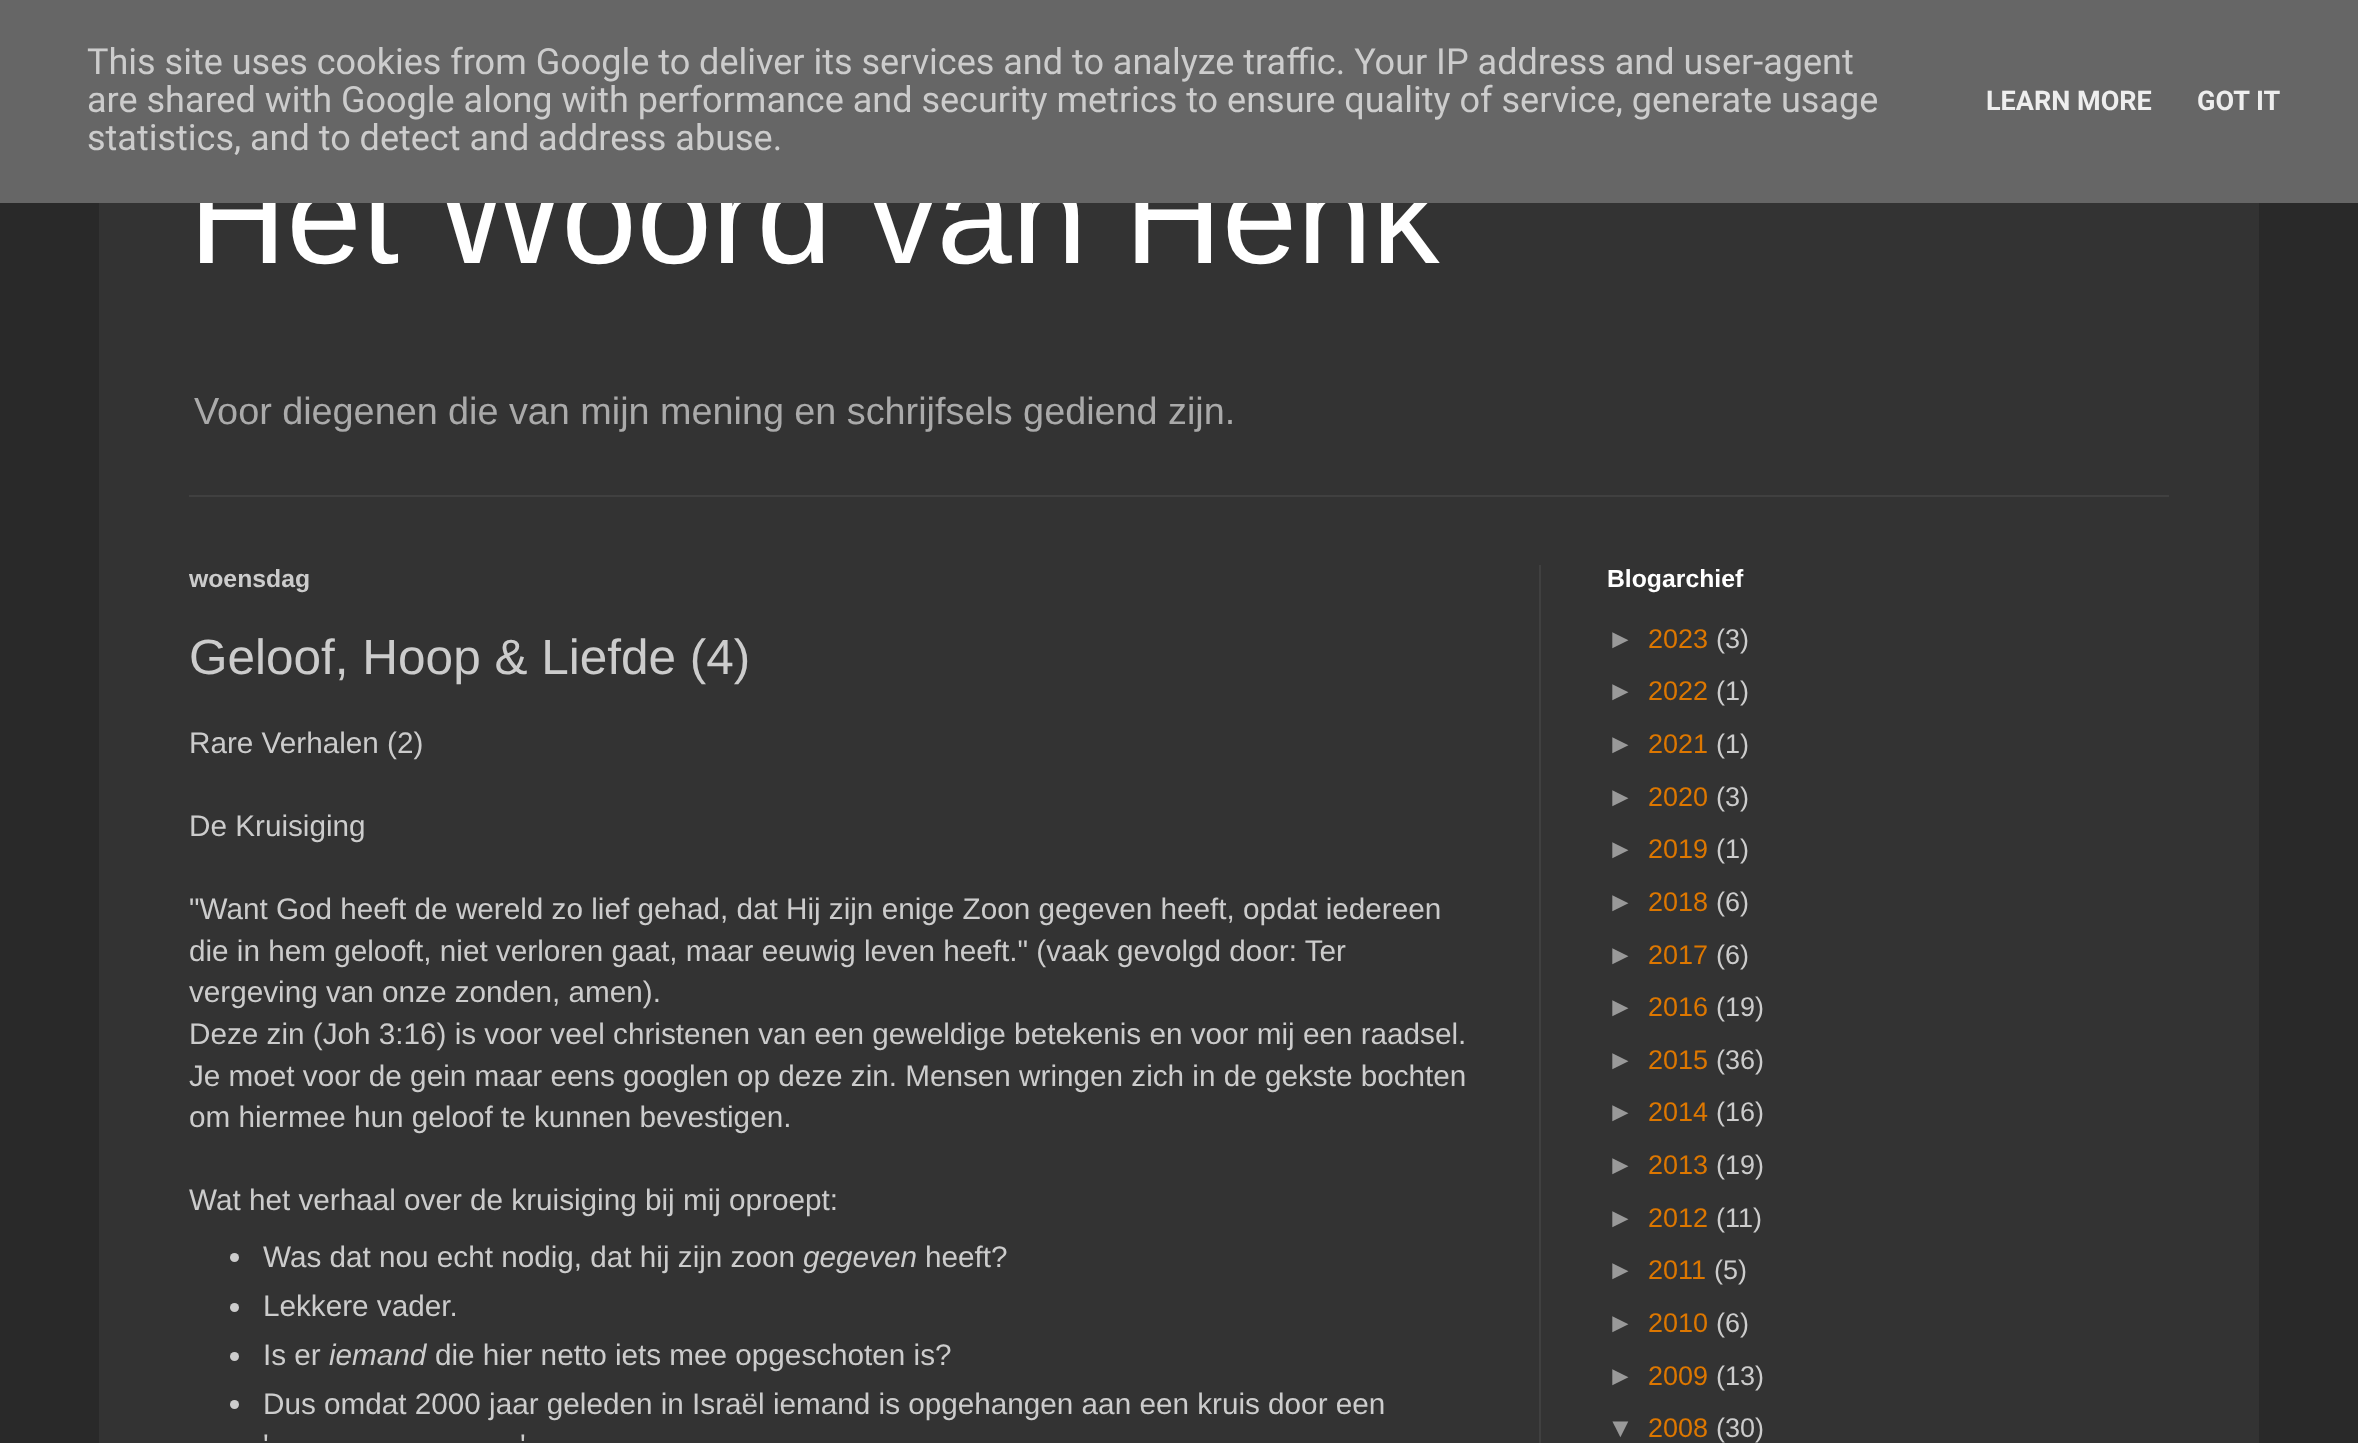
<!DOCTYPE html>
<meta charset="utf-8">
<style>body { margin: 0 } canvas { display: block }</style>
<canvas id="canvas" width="2358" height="1443"></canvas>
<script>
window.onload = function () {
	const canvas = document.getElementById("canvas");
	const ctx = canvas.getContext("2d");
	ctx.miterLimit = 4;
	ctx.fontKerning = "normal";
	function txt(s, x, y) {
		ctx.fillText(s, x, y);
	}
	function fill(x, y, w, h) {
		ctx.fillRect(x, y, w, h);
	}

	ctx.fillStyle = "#292929";
	fill(0, 0, 2358, 1443);
	ctx.fillStyle = "#333333";
	fill(99, 203, 2160, 1240);
	ctx.fillStyle = "#404040";
	fill(189, 495, 1980, 2);
	fill(1539, 565, 2, 878);
	ctx.fillStyle = "#CCCCCC";
	ctx.beginPath();
	ctx.arc(234.5, 1257.5, 4.5, 0, Math.PI * 2);
	ctx.fill();
	ctx.beginPath();
	ctx.arc(234.5, 1307.5, 4.5, 0, Math.PI * 2);
	ctx.fill();
	ctx.beginPath();
	ctx.arc(234.5, 1356.5, 4.5, 0, Math.PI * 2);
	ctx.fill();
	ctx.beginPath();
	ctx.arc(234.5, 1404.5, 4.5, 0, Math.PI * 2);
	ctx.fill();
	ctx.font = "135px Liberation Sans";
	ctx.fillStyle = "#FFFFFF";
	txt("Het Woord van Henk", 189, 263);
	ctx.fillStyle = "#666666";
	fill(0, 0, 2358, 203);
	ctx.font = "bold 27px Roboto";
	ctx.fillStyle = "#EEEEEE";
	txt("GOT IT", 2197, 110);
	txt("LEARN MORE", 1986, 110);
	ctx.font = "36px Roboto";
	ctx.fillStyle = "#CCCCCC";
	txt("statistics, and to detect and address abuse.", 87, 150);
	txt("are shared with Google along with performance and security metrics to ensure quality of service, generate usage", 87, 112);
	txt("This site uses cookies from Google to deliver its services and to analyze traffic. Your IP address and user-agent", 87, 74);
	ctx.wordSpacing = "-0.1px";
	ctx.font = "37.8px Liberation Sans";
	ctx.fillStyle = "#AAAAAA";
	txt("Voor diegenen die van mijn mening en schrijfsels gediend zijn.", 194, 424);
	ctx.wordSpacing = "0px";
	ctx.font = "bold 24.75px Liberation Sans";
	ctx.fillStyle = "#CCCCCC";
	txt("woensdag", 189, 587);
	ctx.font = "49.5px Liberation Sans";
	txt("Geloof, Hoop & Liefde (4)", 189, 674);
	ctx.font = "29.7px Liberation Sans";
	txt("Rare Verhalen (2)", 189, 753);
	txt("De Kruisiging", 189, 836);
	txt("\"Want God heeft de wereld zo lief gehad, dat Hij zijn enige Zoon gegeven heeft, opdat iedereen", 189, 919);
	txt("die in hem gelooft, niet verloren gaat, maar eeuwig leven heeft.\" (vaak gevolgd door: Ter", 189, 961);
	txt("vergeving van onze zonden, amen).", 189, 1002);
	txt("Deze zin (Joh 3:16) is voor veel christenen van een geweldige betekenis en voor mij een raadsel.", 189, 1044);
	txt("Je moet voor de gein maar eens googlen op deze zin. Mensen wringen zich in de gekste bochten", 189, 1086);
	txt("om hiermee hun geloof te kunnen bevestigen.", 189, 1127);
	txt("Wat het verhaal over de kruisiging bij mij oproept:", 189, 1210);
	txt("Was dat nou echt nodig, dat hij zijn zoon", 263, 1267);
	ctx.font = "italic 29.7px Liberation Sans";
	txt("gegeven", 803, 1267);
	ctx.font = "29.7px Liberation Sans";
	txt("heeft?", 925, 1267);
	txt("Lekkere vader.", 263, 1316);
	txt("Is er", 263, 1365);
	ctx.font = "italic 29.7px Liberation Sans";
	txt("iemand", 329, 1365);
	ctx.font = "29.7px Liberation Sans";
	txt("die hier netto iets mee opgeschoten is?", 435, 1365);
	txt("Dus omdat 2000 jaar geleden in Israël iemand is opgehangen aan een kruis door een", 263, 1414);
	txt("'", 263, 1455);
	txt("'", 520, 1455);
	ctx.font = "bold 24.75px Liberation Sans";
	ctx.fillStyle = "#FFFFFF";
	txt("Blogarchief", 1607, 587);
	ctx.font = "27px Liberation Sans";
	ctx.fillStyle = "#999999";
	txt("►", 1607, 648);
	ctx.fillStyle = "#DD7700";
	txt("2023", 1648, 648);
	ctx.fillStyle = "#CCCCCC";
	txt("(3)", 1716, 648);
	ctx.fillStyle = "#999999";
	txt("►", 1607, 700);
	ctx.fillStyle = "#DD7700";
	txt("2022", 1648, 700);
	ctx.fillStyle = "#CCCCCC";
	txt("(1)", 1716, 700);
	ctx.fillStyle = "#999999";
	txt("►", 1607, 753);
	ctx.fillStyle = "#DD7700";
	txt("2021", 1648, 753);
	ctx.fillStyle = "#CCCCCC";
	txt("(1)", 1716, 753);
	ctx.fillStyle = "#999999";
	txt("►", 1607, 806);
	ctx.fillStyle = "#DD7700";
	txt("2020", 1648, 806);
	ctx.fillStyle = "#CCCCCC";
	txt("(3)", 1716, 806);
	ctx.fillStyle = "#999999";
	txt("►", 1607, 858);
	ctx.fillStyle = "#DD7700";
	txt("2019", 1648, 858);
	ctx.fillStyle = "#CCCCCC";
	txt("(1)", 1716, 858);
	ctx.fillStyle = "#999999";
	txt("►", 1607, 911);
	ctx.fillStyle = "#DD7700";
	txt("2018", 1648, 911);
	ctx.fillStyle = "#CCCCCC";
	txt("(6)", 1716, 911);
	ctx.fillStyle = "#999999";
	txt("►", 1607, 964);
	ctx.fillStyle = "#DD7700";
	txt("2017", 1648, 964);
	ctx.fillStyle = "#CCCCCC";
	txt("(6)", 1716, 964);
	ctx.fillStyle = "#999999";
	txt("►", 1607, 1016);
	ctx.fillStyle = "#DD7700";
	txt("2016", 1648, 1016);
	ctx.fillStyle = "#CCCCCC";
	txt("(19)", 1716, 1016);
	ctx.fillStyle = "#999999";
	txt("►", 1607, 1069);
	ctx.fillStyle = "#DD7700";
	txt("2015", 1648, 1069);
	ctx.fillStyle = "#CCCCCC";
	txt("(36)", 1716, 1069);
	ctx.fillStyle = "#999999";
	txt("►", 1607, 1121);
	ctx.fillStyle = "#DD7700";
	txt("2014", 1648, 1121);
	ctx.fillStyle = "#CCCCCC";
	txt("(16)", 1716, 1121);
	ctx.fillStyle = "#999999";
	txt("►", 1607, 1174);
	ctx.fillStyle = "#DD7700";
	txt("2013", 1648, 1174);
	ctx.fillStyle = "#CCCCCC";
	txt("(19)", 1716, 1174);
	ctx.fillStyle = "#999999";
	txt("►", 1607, 1227);
	ctx.fillStyle = "#DD7700";
	txt("2012", 1648, 1227);
	ctx.fillStyle = "#CCCCCC";
	txt("(11)", 1716, 1227);
	ctx.fillStyle = "#999999";
	txt("►", 1607, 1279);
	ctx.fillStyle = "#DD7700";
	txt("2011", 1648, 1279);
	ctx.fillStyle = "#CCCCCC";
	txt("(5)", 1714, 1279);
	ctx.fillStyle = "#999999";
	txt("►", 1607, 1332);
	ctx.fillStyle = "#DD7700";
	txt("2010", 1648, 1332);
	ctx.fillStyle = "#CCCCCC";
	txt("(6)", 1716, 1332);
	ctx.fillStyle = "#999999";
	txt("►", 1607, 1385);
	ctx.fillStyle = "#DD7700";
	txt("2009", 1648, 1385);
	ctx.fillStyle = "#CCCCCC";
	txt("(13)", 1716, 1385);
	ctx.fillStyle = "#999999";
	txt("▼", 1607, 1437);
	ctx.fillStyle = "#DD7700";
	txt("2008", 1648, 1437);
	ctx.fillStyle = "#CCCCCC";
	txt("(30)", 1716, 1437);
};
</script>
